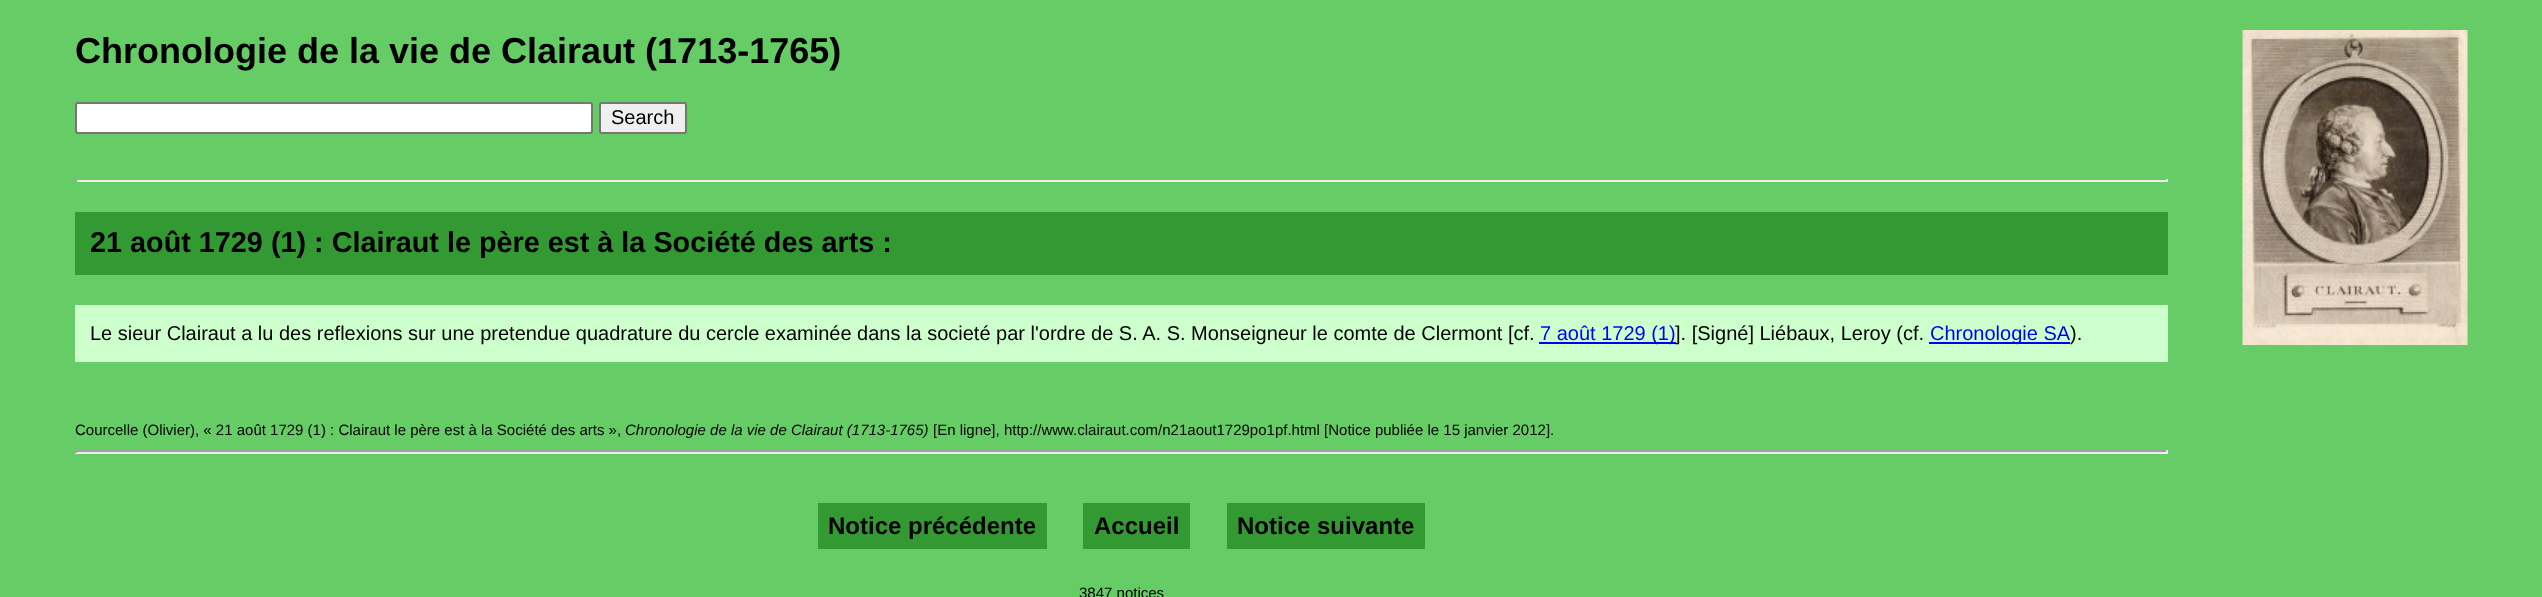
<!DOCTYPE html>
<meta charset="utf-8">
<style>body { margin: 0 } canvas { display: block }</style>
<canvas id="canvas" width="2542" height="597"></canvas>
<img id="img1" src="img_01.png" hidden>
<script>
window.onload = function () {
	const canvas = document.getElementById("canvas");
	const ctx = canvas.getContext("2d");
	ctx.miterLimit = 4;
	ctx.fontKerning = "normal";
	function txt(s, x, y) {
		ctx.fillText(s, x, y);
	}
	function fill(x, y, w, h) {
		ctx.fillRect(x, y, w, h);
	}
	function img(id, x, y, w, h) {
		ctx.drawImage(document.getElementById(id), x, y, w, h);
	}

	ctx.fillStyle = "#66CC66";
	fill(0, 0, 2542, 597);
	img("img1", 2242, 30, 226, 315);
	ctx.fillStyle = "#FFFFFF";
	ctx.beginPath();
	ctx.roundRect(76, 103, 516, 30, 2);
	ctx.fill();
	ctx.strokeStyle = "#767676";
	ctx.lineWidth = 2;
	ctx.stroke();
	ctx.fillStyle = "#EFEFEF";
	ctx.beginPath();
	ctx.roundRect(600, 103, 86, 30, 2);
	ctx.fill();
	ctx.stroke();
	ctx.fillStyle = "#9F9F9F";
	fill(75, 179, 2093, 1);
	ctx.fillStyle = "#EEEEEE";
	fill(2166, 179, 2, 3);
	fill(75, 180, 2093, 2);
	ctx.fillStyle = "#9F9F9F";
	fill(75, 179, 2, 3);
	ctx.fillStyle = "#339933";
	fill(75, 212, 2093, 63);
	ctx.fillStyle = "#CCFFCC";
	fill(75, 305, 2093, 57);
	ctx.fillStyle = "#0000EE";
	fill(1539, 342, 137, 2);
	fill(1929, 342, 141, 2);
	ctx.fillStyle = "#9F9F9F";
	fill(75, 450, 2093, 2);
	ctx.fillStyle = "#EEEEEE";
	fill(2166, 450, 2, 3);
	fill(75, 452, 2093, 2);
	ctx.fillStyle = "#9F9F9F";
	fill(75, 450, 2, 3);
	ctx.fillStyle = "#339933";
	fill(818, 503, 229, 46);
	fill(1083, 503, 107, 46);
	fill(1227, 503, 198, 46);
	ctx.font = "bold 36px Liberation Sans";
	ctx.fillStyle = "#000000";
	txt("Chronologie de la vie de Clairaut (1713-1765)", 75, 63);
	ctx.font = "20px Liberation Sans";
	txt("Search", 611, 124);
	ctx.font = "bold 28.8px Liberation Sans";
	txt("21 août 1729 (1) : Clairaut le père est à la Société des arts :", 90, 252);
	ctx.font = "20px Liberation Sans";
	txt("Le sieur Clairaut a lu des reflexions sur une pretendue quadrature du cercle examinée dans la societé par l'ordre de S. A. S. Monseigneur le comte de Clermont [cf.", 90, 340);
	ctx.fillStyle = "#0000EE";
	txt("7 août 1729 (1)", 1540, 340);
	ctx.fillStyle = "#000000";
	txt("]. [Signé] Liébaux, Leroy (cf.", 1675, 340);
	ctx.fillStyle = "#0000EE";
	txt("Chronologie SA", 1930, 340);
	ctx.fillStyle = "#000000";
	txt(").", 2070, 340);
	ctx.font = "15px Liberation Sans";
	txt("Courcelle (Olivier), « 21 août 1729 (1) : Clairaut le père est à la Société des arts »,", 75, 435);
	ctx.font = "italic 15px Liberation Sans";
	txt("Chronologie de la vie de Clairaut (1713-1765)", 625, 435);
	ctx.font = "15px Liberation Sans";
	txt("[En ligne], http://www.clairaut.com/n21aout1729po1pf.html [Notice publiée le 15 janvier 2012].", 933, 435);
	ctx.font = "bold 24px Liberation Sans";
	txt("Notice précédente", 828, 534);
	txt("Accueil", 1094, 534);
	txt("Notice suivante", 1237, 534);
	ctx.font = "15px Liberation Sans";
	txt("3847 notices", 1079, 598);
};
</script>
